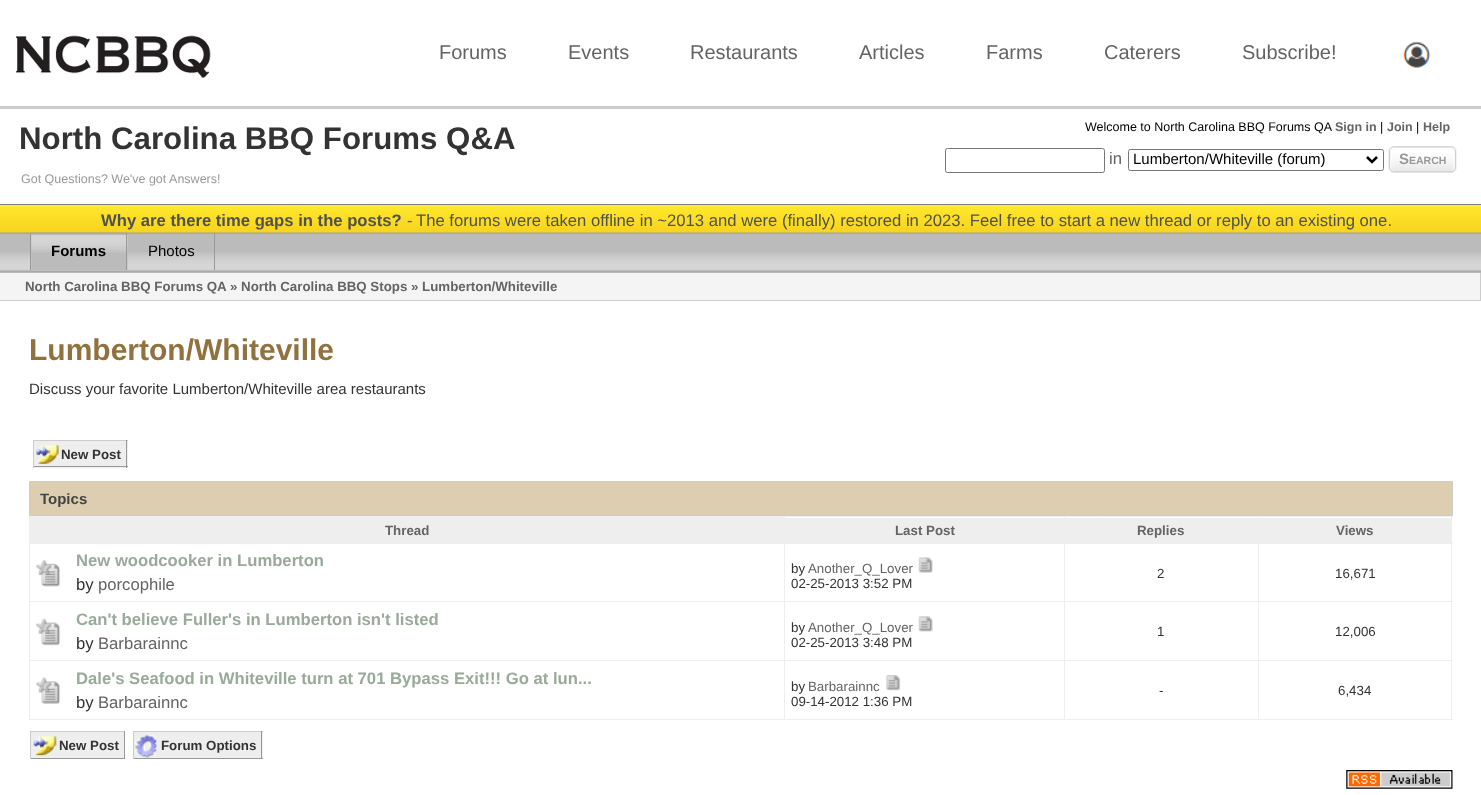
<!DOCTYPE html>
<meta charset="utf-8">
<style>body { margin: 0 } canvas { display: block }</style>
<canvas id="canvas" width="1481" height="795"></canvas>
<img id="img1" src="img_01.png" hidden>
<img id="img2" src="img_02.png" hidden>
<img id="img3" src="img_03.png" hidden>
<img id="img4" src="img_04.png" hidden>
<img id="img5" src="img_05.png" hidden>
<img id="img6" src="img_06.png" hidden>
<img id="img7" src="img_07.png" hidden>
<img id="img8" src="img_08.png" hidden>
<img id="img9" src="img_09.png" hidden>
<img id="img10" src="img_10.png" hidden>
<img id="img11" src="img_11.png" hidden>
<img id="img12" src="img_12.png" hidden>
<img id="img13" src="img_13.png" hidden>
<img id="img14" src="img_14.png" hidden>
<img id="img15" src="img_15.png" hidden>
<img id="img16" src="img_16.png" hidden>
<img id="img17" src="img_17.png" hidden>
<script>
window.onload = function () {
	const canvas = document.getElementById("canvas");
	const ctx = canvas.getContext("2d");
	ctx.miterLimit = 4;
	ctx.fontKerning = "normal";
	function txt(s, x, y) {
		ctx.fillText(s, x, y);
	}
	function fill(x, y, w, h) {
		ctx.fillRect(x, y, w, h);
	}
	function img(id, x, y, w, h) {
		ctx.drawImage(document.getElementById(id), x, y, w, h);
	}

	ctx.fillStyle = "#FFFFFF";
	fill(0, 0, 1481, 795);
	img("img1", 16, 35, 195, 43);
	img("img2", 1403, 41, 28, 27);
	ctx.fillStyle = "#CCCCCC";
	fill(0, 106, 1481, 3);
	ctx.beginPath();
	ctx.roundRect(945.5, 148.5, 159, 24, 2);
	ctx.strokeStyle = "#767676";
	ctx.stroke();
	ctx.beginPath();
	ctx.roundRect(1128.5, 149.5, 255, 21, 2);
	ctx.stroke();
	ctx.beginPath();
	ctx.moveTo(1367, 157);
	ctx.lineTo(1372, 162);
	ctx.lineTo(1377, 157);
	ctx.strokeStyle = "#000000";
	ctx.lineWidth = 2.5;
	ctx.stroke();
	img("img3", 1388, 146, 6, 27);
	img("img4", 1393, 146, 64, 27);
	img("img5", 0, 205, 1481, 28);
	ctx.fillStyle = "#808080";
	fill(0, 204, 1481, 1);
	ctx.fillStyle = "#CCCCCC";
	fill(0, 272, 1481, 1);
	img("img6", 0, 232, 1481, 41);
	ctx.fillStyle = "#999999";
	fill(30, 233, 1, 37);
	img("img7", 31, 232, 97, 38);
	fill(126, 233, 1, 37);
	fill(214, 233, 1, 37);
	ctx.fillStyle = "#F4F4F4";
	fill(0, 273, 1480, 27);
	ctx.fillStyle = "#CCCCCC";
	fill(1480, 273, 1, 28);
	fill(0, 300, 1481, 1);
	ctx.fillStyle = "#EEEEEE";
	fill(34, 441, 94, 27);
	img("img8", 36, 444, 23, 20);
	ctx.fillStyle = "#CCCCCC";
	fill(33, 440, 95, 1);
	ctx.fillStyle = "#999999";
	fill(126, 440, 1, 28);
	fill(33, 466, 95, 1);
	ctx.fillStyle = "#CCCCCC";
	fill(33, 440, 1, 28);
	ctx.fillStyle = "#DDCEB2";
	ctx.beginPath();
	ctx.rect(29.5, 481.5, 1423, 34);
	ctx.fill();
	ctx.strokeStyle = "#CCCCCC";
	ctx.lineWidth = 1;
	ctx.stroke();
	ctx.fillStyle = "#EEEEEE";
	fill(29, 516, 756, 28);
	fill(785, 518, 279, 25);
	fill(785, 516, 668, 1);
	fill(1064, 516, 1, 204);
	fill(785, 543, 280, 1);
	fill(1065, 518, 193, 25);
	fill(1258, 516, 1, 204);
	fill(1065, 543, 194, 1);
	fill(1259, 518, 192, 25);
	fill(1451, 516, 1, 204);
	fill(1259, 543, 194, 1);
	fill(29, 601, 40, 1);
	fill(29, 544, 1, 59);
	img("img9", 36, 560, 25, 27);
	fill(784, 544, 1, 176);
	fill(69, 601, 1384, 1);
	img("img10", 918, 557, 15, 16);
	fill(29, 660, 1424, 1);
	fill(29, 603, 1, 58);
	img("img11", 36, 618, 25, 28);
	img("img12", 918, 616, 15, 16);
	fill(29, 719, 1424, 1);
	fill(29, 661, 1, 59);
	img("img13", 36, 677, 25, 27);
	img("img14", 886, 675, 15, 16);
	fill(31, 732, 93, 26);
	img("img15", 33, 736, 24, 20);
	ctx.fillStyle = "#CCCCCC";
	fill(30, 731, 95, 1);
	ctx.fillStyle = "#999999";
	fill(124, 731, 1, 28);
	fill(30, 758, 95, 1);
	ctx.fillStyle = "#CCCCCC";
	fill(30, 731, 1, 28);
	ctx.fillStyle = "#EEEEEE";
	fill(134, 732, 129, 26);
	img("img16", 135, 735, 22, 23);
	ctx.fillStyle = "#CCCCCC";
	fill(133, 731, 130, 1);
	ctx.fillStyle = "#999999";
	fill(261, 731, 1, 28);
	fill(133, 758, 130, 1);
	ctx.fillStyle = "#CCCCCC";
	fill(133, 731, 1, 28);
	img("img17", 1346, 770, 107, 19);
	ctx.font = "20px Liberation Sans";
	ctx.fillStyle = "#646464";
	txt("Forums", 439, 59);
	txt("Events", 568, 59);
	txt("Restaurants", 690, 59);
	txt("Articles", 859, 59);
	txt("Farms", 986, 59);
	txt("Caterers", 1104, 59);
	txt("Subscribe!", 1242, 59);
	ctx.font = "bold 31.25px Liberation Sans";
	ctx.fillStyle = "#333333";
	txt("North Carolina BBQ Forums Q&A", 19, 149);
	ctx.font = "12.5px Liberation Sans";
	ctx.fillStyle = "#999999";
	txt("Got Questions? We've got Answers!", 21, 183);
	ctx.fillStyle = "#000000";
	txt("Welcome to North Carolina BBQ Forums QA", 1085, 131);
	ctx.font = "bold 12.5px Liberation Sans";
	ctx.fillStyle = "#646464";
	txt("Sign in", 1335, 131);
	ctx.font = "12.5px Liberation Sans";
	ctx.fillStyle = "#000000";
	txt("|", 1380, 131);
	ctx.font = "bold 12.5px Liberation Sans";
	ctx.fillStyle = "#646464";
	txt("Join", 1387, 131);
	ctx.font = "12.5px Liberation Sans";
	ctx.fillStyle = "#000000";
	txt("|", 1416, 131);
	ctx.font = "bold 12.5px Liberation Sans";
	ctx.fillStyle = "#646464";
	txt("Help", 1423, 131);
	ctx.font = "16.67px Liberation Sans";
	txt("in", 1109, 164);
	ctx.font = "15px Liberation Sans";
	ctx.fillStyle = "#000000";
	txt("Lumberton/Whiteville (forum)", 1133, 164);
	ctx.font = "bold 15px Liberation Sans";
	ctx.fillStyle = "#999999";
	txt("S", 1399, 164);
	ctx.font = "bold 10.5px Liberation Sans";
	txt("EARCH", 1409, 164);
	ctx.font = "bold 16.67px Liberation Sans";
	ctx.fillStyle = "#515151";
	txt("Why are there time gaps in the posts?", 101, 226);
	ctx.font = "16.67px Liberation Sans";
	txt("-", 407, 226);
	txt("The forums were taken offline in ~2013 and were (finally) restored in 2023. Feel free to start a new thread or reply to an existing one.", 416, 226);
	ctx.font = "bold 15px Liberation Sans";
	ctx.fillStyle = "#000000";
	txt("Forums", 51, 256);
	ctx.font = "15px Liberation Sans";
	txt("Photos", 148, 256);
	ctx.font = "bold 13.3px Liberation Sans";
	ctx.fillStyle = "#646464";
	txt("North Carolina BBQ Forums QA", 25, 291);
	txt("» North Carolina BBQ Stops » Lumberton/Whiteville", 230, 291);
	ctx.font = "bold 30px Liberation Sans";
	ctx.fillStyle = "#91723F";
	txt("Lumberton/Whiteville", 29, 360);
	ctx.font = "15px Liberation Sans";
	ctx.fillStyle = "#333333";
	txt("Discuss your favorite Lumberton/Whiteville area restaurants", 29, 394);
	ctx.font = "bold 13.3px Liberation Sans";
	txt("New Post", 61, 459);
	ctx.font = "bold 15px Liberation Sans";
	ctx.fillStyle = "#444444";
	txt("Topics", 40, 504);
	ctx.font = "bold 13.3px Liberation Sans";
	ctx.fillStyle = "#646464";
	txt("Thread", 385, 535);
	txt("Last Post", 895, 535);
	txt("Replies", 1137, 535);
	txt("Views", 1336, 535);
	ctx.font = "bold 16.67px Liberation Sans";
	ctx.fillStyle = "#99AA99";
	txt("New woodcooker in Lumberton", 76, 566);
	ctx.font = "16.67px Liberation Sans";
	ctx.fillStyle = "#333333";
	txt("by", 76, 590);
	ctx.fillStyle = "#646464";
	txt("porcophile", 98, 590);
	ctx.font = "13.3px Liberation Sans";
	ctx.fillStyle = "#333333";
	txt("by", 791, 573);
	ctx.fillStyle = "#646464";
	txt("Another_Q_Lover", 808, 573);
	ctx.fillStyle = "#333333";
	txt("02-25-2013 3:52 PM", 791, 588);
	txt("2", 1157, 578);
	txt("16,671", 1335, 578);
	ctx.font = "bold 16.67px Liberation Sans";
	ctx.fillStyle = "#99AA99";
	txt("Can't believe Fuller's in Lumberton isn't listed", 76, 625);
	ctx.font = "16.67px Liberation Sans";
	ctx.fillStyle = "#333333";
	txt("by", 76, 649);
	ctx.fillStyle = "#646464";
	txt("Barbarainnc", 98, 649);
	ctx.font = "13.3px Liberation Sans";
	ctx.fillStyle = "#333333";
	txt("by", 791, 632);
	ctx.fillStyle = "#646464";
	txt("Another_Q_Lover", 808, 632);
	ctx.fillStyle = "#333333";
	txt("02-25-2013 3:48 PM", 791, 647);
	txt("1", 1157, 636);
	txt("12,006", 1335, 636);
	ctx.font = "bold 16.67px Liberation Sans";
	ctx.fillStyle = "#99AA99";
	txt("Dale's Seafood in Whiteville turn at 701 Bypass Exit!!! Go at lun...", 76, 684);
	ctx.font = "16.67px Liberation Sans";
	ctx.fillStyle = "#333333";
	txt("by", 76, 708);
	ctx.fillStyle = "#646464";
	txt("Barbarainnc", 98, 708);
	ctx.font = "13.3px Liberation Sans";
	ctx.fillStyle = "#333333";
	txt("by", 791, 691);
	ctx.fillStyle = "#646464";
	txt("Barbarainnc", 808, 691);
	ctx.fillStyle = "#333333";
	txt("09-14-2012 1:36 PM", 791, 706);
	txt("-", 1159, 695);
	txt("6,434", 1338, 695);
	ctx.font = "bold 13.3px Liberation Sans";
	txt("New Post", 59, 750);
	txt("Forum Options", 161, 750);
};
</script>
